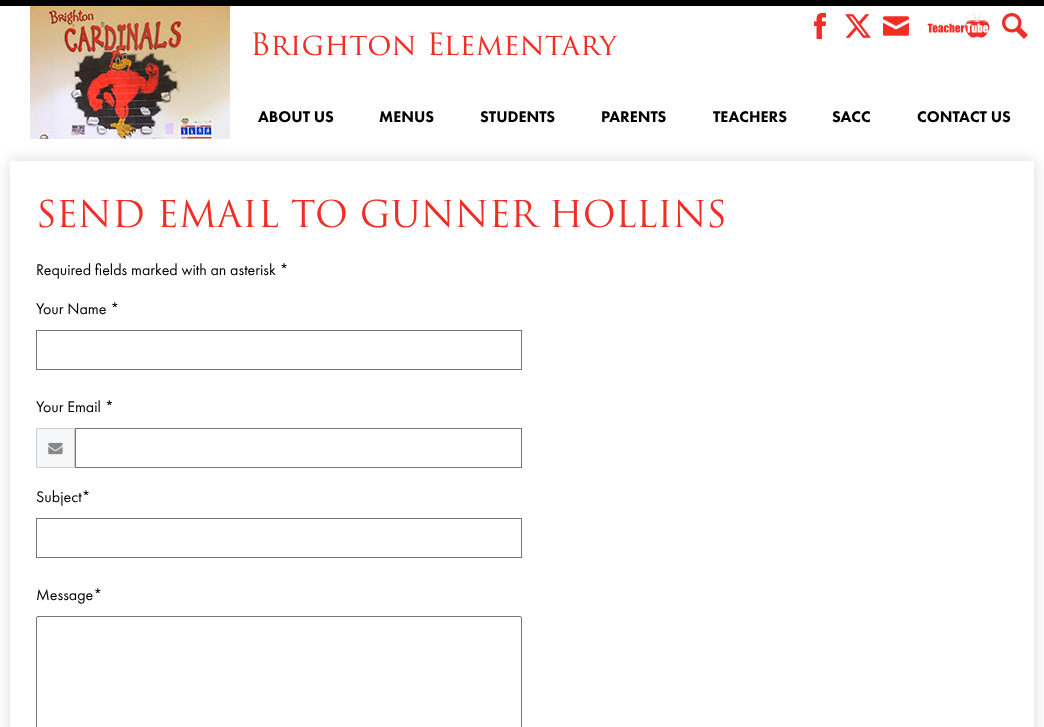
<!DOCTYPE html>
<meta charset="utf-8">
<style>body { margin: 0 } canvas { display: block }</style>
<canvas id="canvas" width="1044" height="727"></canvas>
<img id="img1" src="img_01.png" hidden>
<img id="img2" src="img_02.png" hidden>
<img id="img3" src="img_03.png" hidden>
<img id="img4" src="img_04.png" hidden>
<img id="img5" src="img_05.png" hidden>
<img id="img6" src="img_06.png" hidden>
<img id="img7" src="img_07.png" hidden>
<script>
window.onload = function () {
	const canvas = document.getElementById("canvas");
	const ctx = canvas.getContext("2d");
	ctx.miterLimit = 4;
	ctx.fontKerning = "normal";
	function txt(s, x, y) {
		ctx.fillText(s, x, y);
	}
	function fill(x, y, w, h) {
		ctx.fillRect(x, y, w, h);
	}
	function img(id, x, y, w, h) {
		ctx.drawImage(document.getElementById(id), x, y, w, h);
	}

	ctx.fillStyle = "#FFFFFF";
	fill(0, 0, 1044, 727);
	ctx.fillStyle = "#000000";
	fill(0, 0, 1044, 6);
	img("img1", 813, 13, 13, 26);
	img("img2", 845, 14, 26, 24);
	img("img3", 883, 16, 26, 20);
	img("img4", 927, 13, 63, 25);
	img("img5", 1002, 13, 26, 26);
	ctx.save();
	ctx.beginPath();
	ctx.moveTo(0, 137);
	ctx.lineTo(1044, 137);
	ctx.lineTo(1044, 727);
	ctx.lineTo(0, 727);
	ctx.closePath();
	ctx.moveTo(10, 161);
	ctx.lineTo(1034, 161);
	ctx.lineTo(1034, 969);
	ctx.lineTo(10, 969);
	ctx.closePath();
	ctx.clip("evenodd");
	ctx.fillStyle = "rgba(0, 0, 0, 0.15)";
	ctx.filter = "blur(7.5px)";
	ctx.beginPath();
	ctx.rect(10, 161, 1024, 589);
	ctx.fill();
	ctx.filter = "none";
	ctx.restore();
	img("img6", 30, 6, 200, 133);
	ctx.strokeStyle = "#767676";
	ctx.strokeRect(36.5, 330.5, 485, 39);
	ctx.fillStyle = "#F6F7F8";
	ctx.beginPath();
	ctx.rect(36.5, 428.5, 38, 39);
	ctx.fill();
	ctx.strokeStyle = "#CCCCCC";
	ctx.stroke();
	img("img7", 48, 442, 15, 13);
	ctx.strokeStyle = "#767676";
	ctx.strokeRect(75.5, 428.5, 446, 39);
	ctx.strokeRect(36.5, 518.5, 485, 39);
	ctx.beginPath();
	ctx.roundRect(36.5, 616.5, 485, 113, 1.5);
	ctx.stroke();
	ctx.font = "30px 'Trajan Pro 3'";
	ctx.fillStyle = "#F02E25";
	txt("Brighton Elementary", 250, 55);
	ctx.font = "900 16px Futura PT";
	ctx.fillStyle = "#000000";
	txt("ABOUT US", 258, 122);
	txt("MENUS", 379, 122);
	txt("STUDENTS", 480, 122);
	txt("PARENTS", 601, 122);
	txt("TEACHERS", 713, 122);
	txt("SACC", 832, 122);
	txt("CONTACT US", 917, 122);
	ctx.font = "36px 'Trajan Pro 3'";
	ctx.fillStyle = "#F02E25";
	txt("SEND EMAIL TO GUNNER HOLLINS", 36, 227);
	ctx.font = "16px Futura PT";
	ctx.fillStyle = "#000000";
	txt("Required fields marked with an asterisk *", 36, 275);
	txt("Your Name *", 36, 314);
	txt("Your Email *", 36, 412);
	txt("Subject*", 36, 502);
	txt("Message*", 36, 600);
};
</script>
